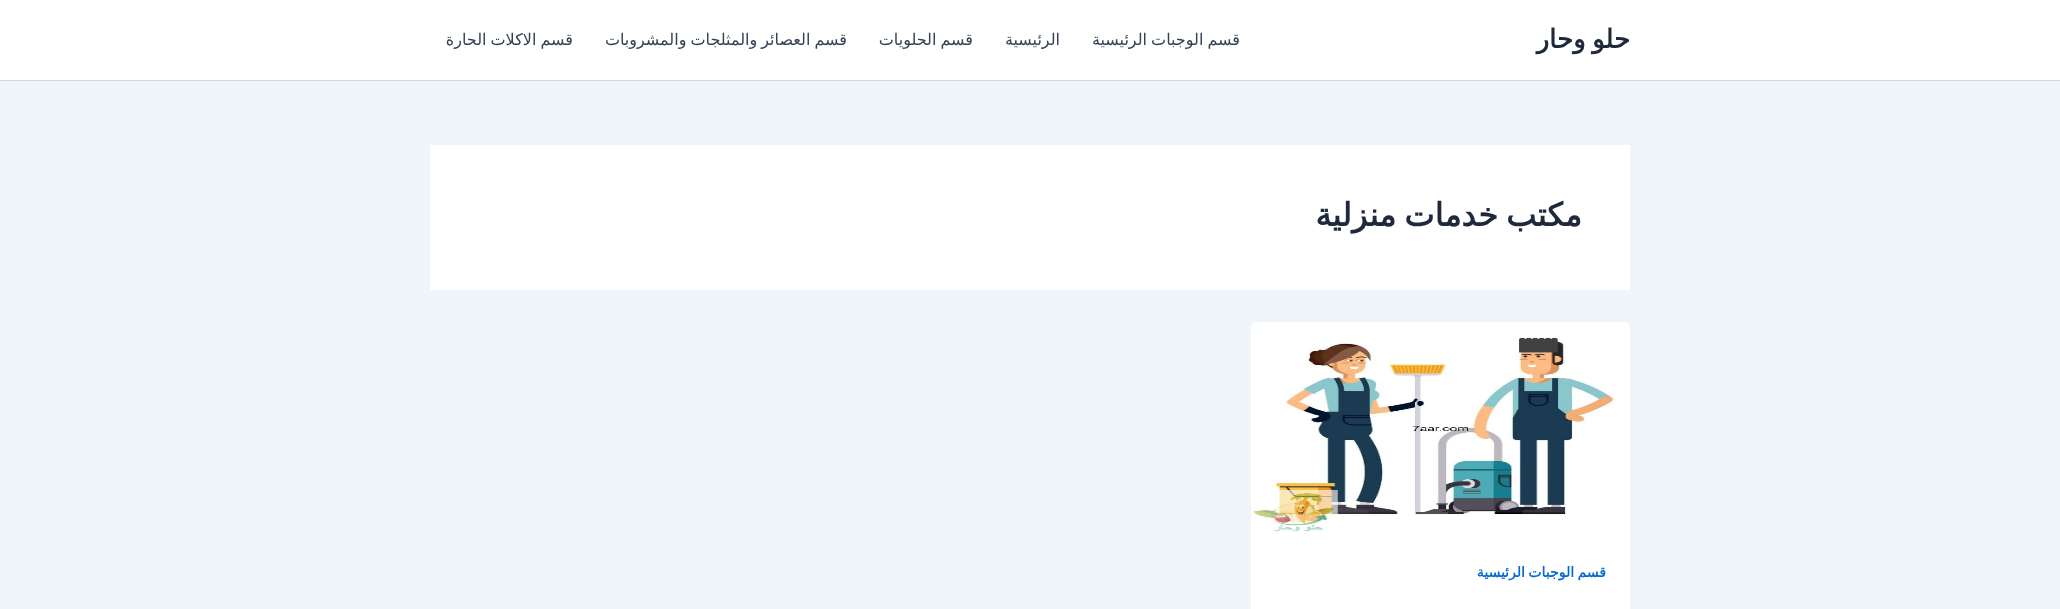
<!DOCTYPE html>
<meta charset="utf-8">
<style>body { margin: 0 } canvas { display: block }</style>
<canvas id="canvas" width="2060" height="609"></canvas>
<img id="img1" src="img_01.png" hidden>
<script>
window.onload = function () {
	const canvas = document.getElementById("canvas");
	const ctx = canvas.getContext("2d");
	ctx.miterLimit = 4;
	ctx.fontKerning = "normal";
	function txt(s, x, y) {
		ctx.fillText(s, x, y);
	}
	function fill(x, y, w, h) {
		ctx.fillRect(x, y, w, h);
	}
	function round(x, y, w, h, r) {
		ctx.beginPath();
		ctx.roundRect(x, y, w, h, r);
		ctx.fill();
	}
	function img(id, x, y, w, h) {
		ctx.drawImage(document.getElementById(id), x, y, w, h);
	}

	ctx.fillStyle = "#F0F5FA";
	fill(0, 0, 2060, 609);
	ctx.fillStyle = "#FFFFFF";
	fill(0, 0, 2060, 80);
	ctx.fillStyle = "#D1D5DB";
	fill(0, 80, 2060, 1);
	ctx.fillStyle = "#FFFFFF";
	fill(430, 145, 1200, 145);
	round(1251, 322, 379, 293, 6);
	img("img1", 1251, 337, 367, 195);
	ctx.wordSpacing = "-2px";
	ctx.direction = "rtl";
	ctx.font = "bold 26px DejaVu Sans";
	ctx.fillStyle = "#1E293B";
	txt("حلو وحار", 1630, 48);
	ctx.wordSpacing = "-1px";
	ctx.font = "16px DejaVu Sans";
	ctx.fillStyle = "#334155";
	txt("قسم الوجبات الرئيسية", 1240, 45);
	ctx.wordSpacing = "0px";
	txt("الرئيسية", 1060, 45);
	ctx.wordSpacing = "-1px";
	txt("قسم الحلويات", 973, 45);
	txt("قسم العصائر والمثلجات والمشروبات", 847, 45);
	txt("قسم الاكلات الحارة", 573, 45);
	ctx.wordSpacing = "-2px";
	ctx.font = "bold 32px DejaVu Sans";
	ctx.fillStyle = "#1E293B";
	txt("مكتب خدمات منزلية", 1582, 226);
	ctx.wordSpacing = "-1px";
	ctx.font = "bold 14px DejaVu Sans";
	ctx.fillStyle = "#046BD2";
	txt("قسم الوجبات الرئيسية", 1606, 577);
};
</script>
